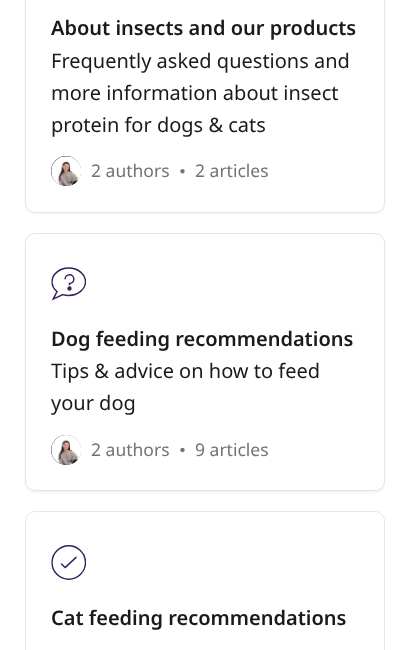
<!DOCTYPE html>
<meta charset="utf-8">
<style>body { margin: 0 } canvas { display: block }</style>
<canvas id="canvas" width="410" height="650"></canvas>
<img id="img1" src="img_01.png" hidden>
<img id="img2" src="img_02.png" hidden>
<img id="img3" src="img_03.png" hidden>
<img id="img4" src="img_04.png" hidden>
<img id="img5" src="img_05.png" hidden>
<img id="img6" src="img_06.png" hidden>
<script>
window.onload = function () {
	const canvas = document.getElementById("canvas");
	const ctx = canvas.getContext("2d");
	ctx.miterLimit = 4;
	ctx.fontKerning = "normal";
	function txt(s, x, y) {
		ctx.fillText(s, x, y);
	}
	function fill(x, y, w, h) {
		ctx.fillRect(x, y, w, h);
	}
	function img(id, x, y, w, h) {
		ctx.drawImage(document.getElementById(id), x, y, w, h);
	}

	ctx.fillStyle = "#FFFFFF";
	fill(0, 0, 410, 650);
	ctx.fillStyle = "rgba(0, 0, 0, 0.05)";
	ctx.filter = "blur(1px)";
	ctx.beginPath();
	ctx.roundRect(25, -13, 360, 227, 10);
	ctx.fill();
	ctx.filter = "none";
	ctx.fillStyle = "#FFFFFF";
	ctx.beginPath();
	ctx.roundRect(25.5, -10.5, 359, 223, 9.5);
	ctx.fill();
	ctx.strokeStyle = "#E6E6E6";
	ctx.stroke();
	ctx.fillStyle = "#361E5C";
	ctx.beginPath();
	ctx.arc(66, 171, 15, 0, Math.PI * 2);
	ctx.fill();
	img("img1", 51, 156, 30, 31);
	img("img2", 180, 169, 5, 5);
	ctx.fillStyle = "rgba(0, 0, 0, 0.05)";
	ctx.filter = "blur(1px)";
	ctx.beginPath();
	ctx.roundRect(25, 234, 360, 259, 10);
	ctx.fill();
	ctx.filter = "none";
	ctx.fillStyle = "#FFFFFF";
	ctx.beginPath();
	ctx.roundRect(25.5, 233.5, 359, 257, 9.5);
	ctx.fill();
	ctx.stroke();
	img("img3", 51, 267, 35, 34);
	ctx.fillStyle = "#361E5C";
	ctx.beginPath();
	ctx.arc(66, 450, 15, 0, Math.PI * 2);
	ctx.fill();
	img("img4", 51, 435, 30, 30);
	img("img5", 180, 448, 5, 5);
	ctx.beginPath();
	ctx.roundRect(25.5, 511.5, 359, 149, 9.5);
	ctx.stroke();
	img("img6", 51, 545, 35, 35);
	ctx.font = "600 20px Noto Sans";
	ctx.fillStyle = "#1A1A1A";
	txt("About insects and our products", 51, 35);
	ctx.font = "20px Noto Sans";
	txt("Frequently asked questions and", 51, 68);
	txt("more information about insect", 51, 100);
	txt("protein for dogs & cats", 51, 132);
	ctx.font = "17.5px Noto Sans";
	ctx.fillStyle = "#737373";
	txt("2 authors", 91, 177);
	txt("2 articles", 195, 177);
	ctx.font = "600 20px Noto Sans";
	ctx.fillStyle = "#1A1A1A";
	txt("Dog feeding recommendations", 51, 346);
	ctx.font = "20px Noto Sans";
	txt("Tips & advice on how to feed", 51, 378);
	txt("your dog", 51, 410);
	ctx.font = "17.5px Noto Sans";
	ctx.fillStyle = "#737373";
	txt("2 authors", 91, 456);
	txt("9 articles", 195, 456);
	ctx.font = "600 20px Noto Sans";
	ctx.fillStyle = "#1A1A1A";
	txt("Cat feeding recommendations", 51, 625);
};
</script>
